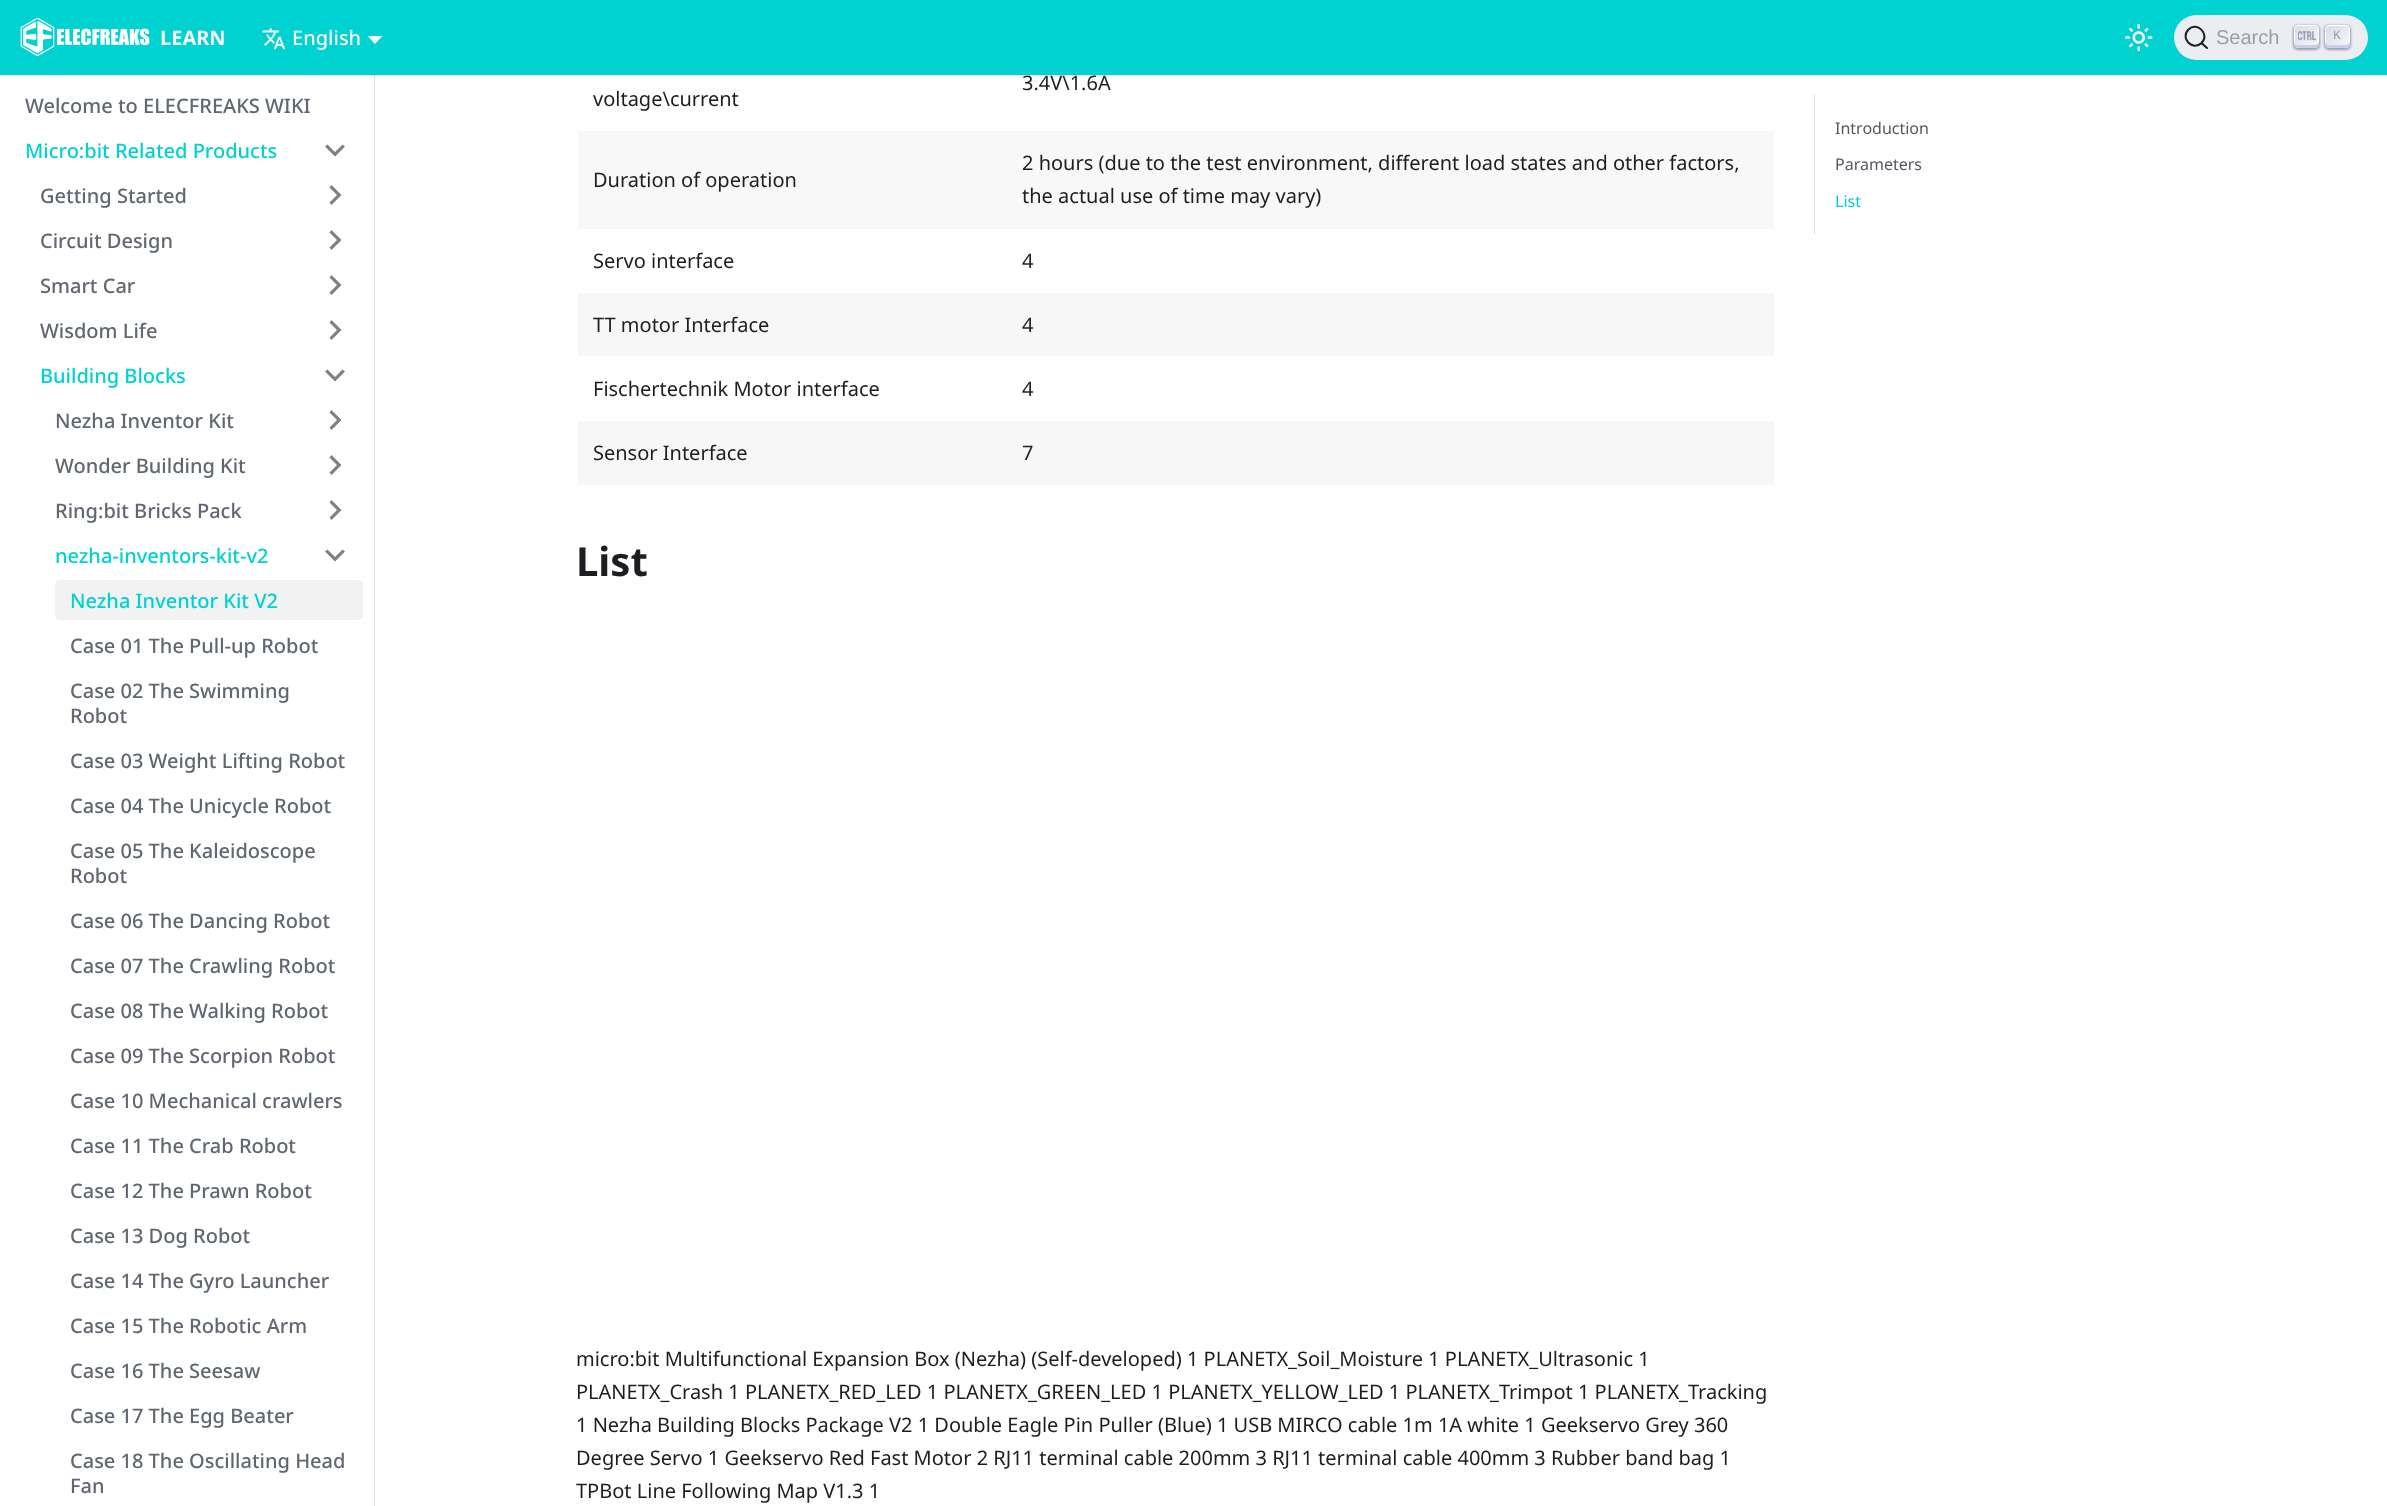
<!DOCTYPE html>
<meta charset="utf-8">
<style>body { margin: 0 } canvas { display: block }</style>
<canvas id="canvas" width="2387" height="1506"></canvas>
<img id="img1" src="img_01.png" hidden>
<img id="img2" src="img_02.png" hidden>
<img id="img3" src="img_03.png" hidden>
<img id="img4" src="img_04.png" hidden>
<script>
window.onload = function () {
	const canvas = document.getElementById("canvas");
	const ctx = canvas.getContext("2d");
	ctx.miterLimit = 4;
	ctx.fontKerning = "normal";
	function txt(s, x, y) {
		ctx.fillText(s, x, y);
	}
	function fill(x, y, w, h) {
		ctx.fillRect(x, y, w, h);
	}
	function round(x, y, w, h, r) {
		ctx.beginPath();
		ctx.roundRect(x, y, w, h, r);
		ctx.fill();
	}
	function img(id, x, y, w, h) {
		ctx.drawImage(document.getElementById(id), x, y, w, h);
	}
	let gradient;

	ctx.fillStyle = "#FFFFFF";
	fill(0, 0, 2387, 1506);
	ctx.fillStyle = "#DADDE1";
	fill(374, 75, 1, 1431);
	ctx.fillStyle = "rgba(0, 0, 0, 0.1)";
	ctx.filter = "blur(1px)";
	ctx.beginPath();
	ctx.rect(0, 1, 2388, 75);
	ctx.fill();
	ctx.filter = "none";
	ctx.fillStyle = "#00D1D1";
	fill(0, 0, 2387, 75);
	img("img1", 20, 18, 130, 39);
	img("img2", 262, 28, 24, 22);
	ctx.fillStyle = "#F5F6F7";
	ctx.beginPath();
	ctx.moveTo(367.5, 36);
	ctx.lineTo(382.5, 36);
	ctx.lineTo(375, 44);
	ctx.closePath();
	ctx.fill();
	img("img3", 2125, 23, 28, 29);
	ctx.fillStyle = "#EBEDF0";
	round(2174, 15, 194, 45, 22.5);
	ctx.beginPath();
	ctx.moveTo(2201.5, 43);
	ctx.lineTo(2207, 48);
	ctx.lineTo(2201.5, 43);
	ctx.bezierCurveTo(2193, 51.5, 2179.5, 38.5, 2188.5, 29.5);
	ctx.bezierCurveTo(2197, 21, 2210.5, 34.5, 2201.5, 43);
	ctx.closePath();
	ctx.strokeStyle = "#1C1E21";
	ctx.lineWidth = 2;
	ctx.lineCap = "round";
	ctx.lineJoin = "round";
	ctx.stroke();
	ctx.fillStyle = "rgba(30, 35, 90, 0.4)";
	ctx.filter = "blur(1px)";
	ctx.beginPath();
	ctx.roundRect(2293, 25, 27, 25, 5);
	ctx.fill();
	ctx.filter = "none";
	gradient = ctx.createLinearGradient(2294, 24, 2318, 48);
	gradient.addColorStop(0, "#D5DBE4");
	gradient.addColorStop(1, "#F8F8F8");
	ctx.fillStyle = gradient;
	ctx.beginPath();
	ctx.roundRect(2294.5, 25.5, 24, 22, 3.5);
	ctx.fill();
	ctx.strokeStyle = "#FFFFFF";
	ctx.lineWidth = 1;
	ctx.lineJoin = "miter";
	ctx.stroke();
	ctx.fillStyle = "#CDCDE6";
	ctx.beginPath();
	ctx.moveTo(2319, 41.5);
	ctx.bezierCurveTo(2318.5, 44, 2317, 45, 2312, 45);
	ctx.lineTo(2298, 45);
	ctx.bezierCurveTo(2295.5, 45, 2294.5, 43.5, 2294, 42);
	ctx.bezierCurveTo(2294, 47.5, 2295.5, 48, 2301, 48);
	ctx.lineTo(2312, 48);
	ctx.bezierCurveTo(2318, 48, 2319, 47.5, 2319, 41.5);
	ctx.closePath();
	ctx.fill();
	img("img4", 2298, 31, 18, 10);
	ctx.fillStyle = "rgba(30, 35, 90, 0.4)";
	ctx.filter = "blur(1px)";
	ctx.beginPath();
	ctx.roundRect(2324, 25, 27, 25, 5);
	ctx.fill();
	ctx.filter = "none";
	gradient = ctx.createLinearGradient(2326, 24, 2349, 48);
	gradient.addColorStop(0, "#D5DBE4");
	gradient.addColorStop(1, "#F8F8F8");
	ctx.fillStyle = gradient;
	ctx.beginPath();
	ctx.roundRect(2325.5, 25.5, 24, 22, 3.5);
	ctx.fill();
	ctx.stroke();
	ctx.fillStyle = "#CDCDE6";
	ctx.beginPath();
	ctx.moveTo(2350, 41.5);
	ctx.bezierCurveTo(2349.5, 44, 2348, 45, 2343, 45);
	ctx.lineTo(2329, 45);
	ctx.bezierCurveTo(2326.5, 45, 2325.5, 43.5, 2325, 42);
	ctx.bezierCurveTo(2325, 47.5, 2326.5, 48, 2332, 48);
	ctx.lineTo(2343, 48);
	ctx.bezierCurveTo(2349, 48, 2350, 47.5, 2350, 41.5);
	ctx.closePath();
	ctx.fill();
	ctx.fillStyle = "#808080";
	ctx.beginPath();
	ctx.moveTo(342.5, 144.5);
	ctx.lineTo(335, 152);
	ctx.lineTo(327.5, 144.5);
	ctx.lineTo(325, 146.5);
	ctx.lineTo(335, 156.5);
	ctx.lineTo(345, 146.5);
	ctx.closePath();
	ctx.fill();
	ctx.beginPath();
	ctx.moveTo(329.5, 187.5);
	ctx.lineTo(337, 195);
	ctx.lineTo(329.5, 202.5);
	ctx.lineTo(331.5, 205);
	ctx.lineTo(341.5, 195);
	ctx.lineTo(331.5, 185);
	ctx.closePath();
	ctx.fill();
	ctx.beginPath();
	ctx.moveTo(329.5, 232.5);
	ctx.lineTo(337, 240);
	ctx.lineTo(329.5, 247.5);
	ctx.lineTo(331.5, 250);
	ctx.lineTo(341.5, 240);
	ctx.lineTo(331.5, 230);
	ctx.closePath();
	ctx.fill();
	ctx.beginPath();
	ctx.moveTo(329.5, 277.5);
	ctx.lineTo(337, 285);
	ctx.lineTo(329.5, 292.5);
	ctx.lineTo(331.5, 295);
	ctx.lineTo(341.5, 285);
	ctx.lineTo(331.5, 275);
	ctx.closePath();
	ctx.fill();
	ctx.beginPath();
	ctx.moveTo(329.5, 322.5);
	ctx.lineTo(337, 330);
	ctx.lineTo(329.5, 337.5);
	ctx.lineTo(331.5, 340);
	ctx.lineTo(341.5, 330);
	ctx.lineTo(331.5, 320);
	ctx.closePath();
	ctx.fill();
	ctx.beginPath();
	ctx.moveTo(342.5, 369.5);
	ctx.lineTo(335, 377);
	ctx.lineTo(327.5, 369.5);
	ctx.lineTo(325, 371.5);
	ctx.lineTo(335, 381.5);
	ctx.lineTo(345, 371.5);
	ctx.closePath();
	ctx.fill();
	ctx.beginPath();
	ctx.moveTo(329.5, 412.5);
	ctx.lineTo(337, 420);
	ctx.lineTo(329.5, 427.5);
	ctx.lineTo(331.5, 430);
	ctx.lineTo(341.5, 420);
	ctx.lineTo(331.5, 410);
	ctx.closePath();
	ctx.fill();
	ctx.beginPath();
	ctx.moveTo(329.5, 457.5);
	ctx.lineTo(337, 465);
	ctx.lineTo(329.5, 472.5);
	ctx.lineTo(331.5, 475);
	ctx.lineTo(341.5, 465);
	ctx.lineTo(331.5, 455);
	ctx.closePath();
	ctx.fill();
	ctx.beginPath();
	ctx.moveTo(329.5, 502.5);
	ctx.lineTo(337, 510);
	ctx.lineTo(329.5, 517.5);
	ctx.lineTo(331.5, 520);
	ctx.lineTo(341.5, 510);
	ctx.lineTo(331.5, 500);
	ctx.closePath();
	ctx.fill();
	ctx.beginPath();
	ctx.moveTo(342.5, 549.5);
	ctx.lineTo(335, 557);
	ctx.lineTo(327.5, 549.5);
	ctx.lineTo(325, 551.5);
	ctx.lineTo(335, 561.5);
	ctx.lineTo(345, 551.5);
	ctx.closePath();
	ctx.fill();
	ctx.fillStyle = "#F2F2F2";
	round(55, 580, 308, 40, 5);
	ctx.fillStyle = "#F8F8F8";
	fill(578, 131, 1196, 98);
	ctx.fillStyle = "#F7F7F7";
	fill(578, 293, 1196, 63);
	fill(578, 421, 1196, 64);
	ctx.fillStyle = "#DADDE1";
	fill(1814, 95, 1, 139);
	ctx.font = "bold 20px Noto Sans";
	ctx.fillStyle = "#F5F6F7";
	txt("LEARN", 160, 45);
	ctx.font = "500 20px Noto Sans";
	txt("English", 292, 45);
	ctx.font = "20px Liberation Sans";
	ctx.fillStyle = "#969FAF";
	txt("Search", 2216, 44);
	ctx.font = "13px Liberation Mono";
	txt("K", 2333, 39);
	ctx.font = "500 20px Noto Sans";
	ctx.fillStyle = "#606770";
	txt("Welcome to ELECFREAKS WIKI", 25, 113);
	ctx.fillStyle = "#00D1D1";
	txt("Micro:bit Related Products", 25, 158);
	ctx.fillStyle = "#606770";
	txt("Getting Started", 40, 203);
	txt("Circuit Design", 40, 248);
	txt("Smart Car", 40, 293);
	txt("Wisdom Life", 40, 338);
	ctx.fillStyle = "#00D1D1";
	txt("Building Blocks", 40, 383);
	ctx.fillStyle = "#606770";
	txt("Nezha Inventor Kit", 55, 428);
	txt("Wonder Building Kit", 55, 473);
	txt("Ring:bit Bricks Pack", 55, 518);
	ctx.fillStyle = "#00D1D1";
	txt("nezha-inventors-kit-v2", 55, 563);
	txt("Nezha Inventor Kit V2", 70, 608);
	ctx.fillStyle = "#606770";
	txt("Case 01 The Pull-up Robot", 70, 653);
	txt("Case 02 The Swimming", 70, 698);
	txt("Robot", 70, 723);
	txt("Case 03 Weight Lifting Robot", 70, 768);
	txt("Case 04 The Unicycle Robot", 70, 813);
	txt("Case 05 The Kaleidoscope", 70, 858);
	txt("Robot", 70, 883);
	txt("Case 06 The Dancing Robot", 70, 928);
	txt("Case 07 The Crawling Robot", 70, 973);
	txt("Case 08 The Walking Robot", 70, 1018);
	txt("Case 09 The Scorpion Robot", 70, 1063);
	txt("Case 10 Mechanical crawlers", 70, 1108);
	txt("Case 11 The Crab Robot", 70, 1153);
	txt("Case 12 The Prawn Robot", 70, 1198);
	txt("Case 13 Dog Robot", 70, 1243);
	txt("Case 14 The Gyro Launcher", 70, 1288);
	txt("Case 15 The Robotic Arm", 70, 1333);
	txt("Case 16 The Seesaw", 70, 1378);
	txt("Case 17 The Egg Beater", 70, 1423);
	txt("Case 18 The Oscillating Head", 70, 1468);
	txt("Fan", 70, 1493);
	ctx.font = "20px Noto Sans";
	ctx.fillStyle = "#1C1E21";
	txt("3.4V\\1.6A", 1022, 90);
	txt("voltage\\current", 593, 106);
	txt("Duration of operation", 593, 187);
	txt("2 hours (due to the test environment, different load states and other factors,", 1022, 170);
	txt("the actual use of time may vary)", 1022, 203);
	txt("Servo interface", 593, 268);
	txt("4", 1022, 268);
	txt("TT motor Interface", 593, 332);
	txt("4", 1022, 332);
	txt("Fischertechnik Motor interface", 593, 396);
	txt("4", 1022, 396);
	txt("Sensor Interface", 593, 460);
	txt("7", 1022, 460);
	ctx.font = "bold 40px Noto Sans";
	txt("List", 576, 576);
	ctx.font = "20px Noto Sans";
	txt("micro:bit Multifunctional Expansion Box (Nezha) (Self-developed) 1 PLANETX_Soil_Moisture 1 PLANETX_Ultrasonic 1", 576, 1366);
	txt("PLANETX_Crash 1 PLANETX_RED_LED 1 PLANETX_GREEN_LED 1 PLANETX_YELLOW_LED 1 PLANETX_Trimpot 1 PLANETX_Tracking", 576, 1399);
	txt("1 Nezha Building Blocks Package V2 1 Double Eagle Pin Puller (Blue) 1 USB MIRCO cable 1m 1A white 1 Geekservo Grey 360", 576, 1432);
	txt("Degree Servo 1 Geekservo Red Fast Motor 2 RJ11 terminal cable 200mm 3 RJ11 terminal cable 400mm 3 Rubber band bag 1", 576, 1465);
	txt("TPBot Line Following Map V1.3 1", 576, 1498);
	ctx.font = "16px Noto Sans";
	ctx.fillStyle = "#525860";
	txt("Introduction", 1835, 134);
	txt("Parameters", 1835, 170);
	ctx.fillStyle = "#00D1D1";
	txt("List", 1835, 207);
};
</script>
